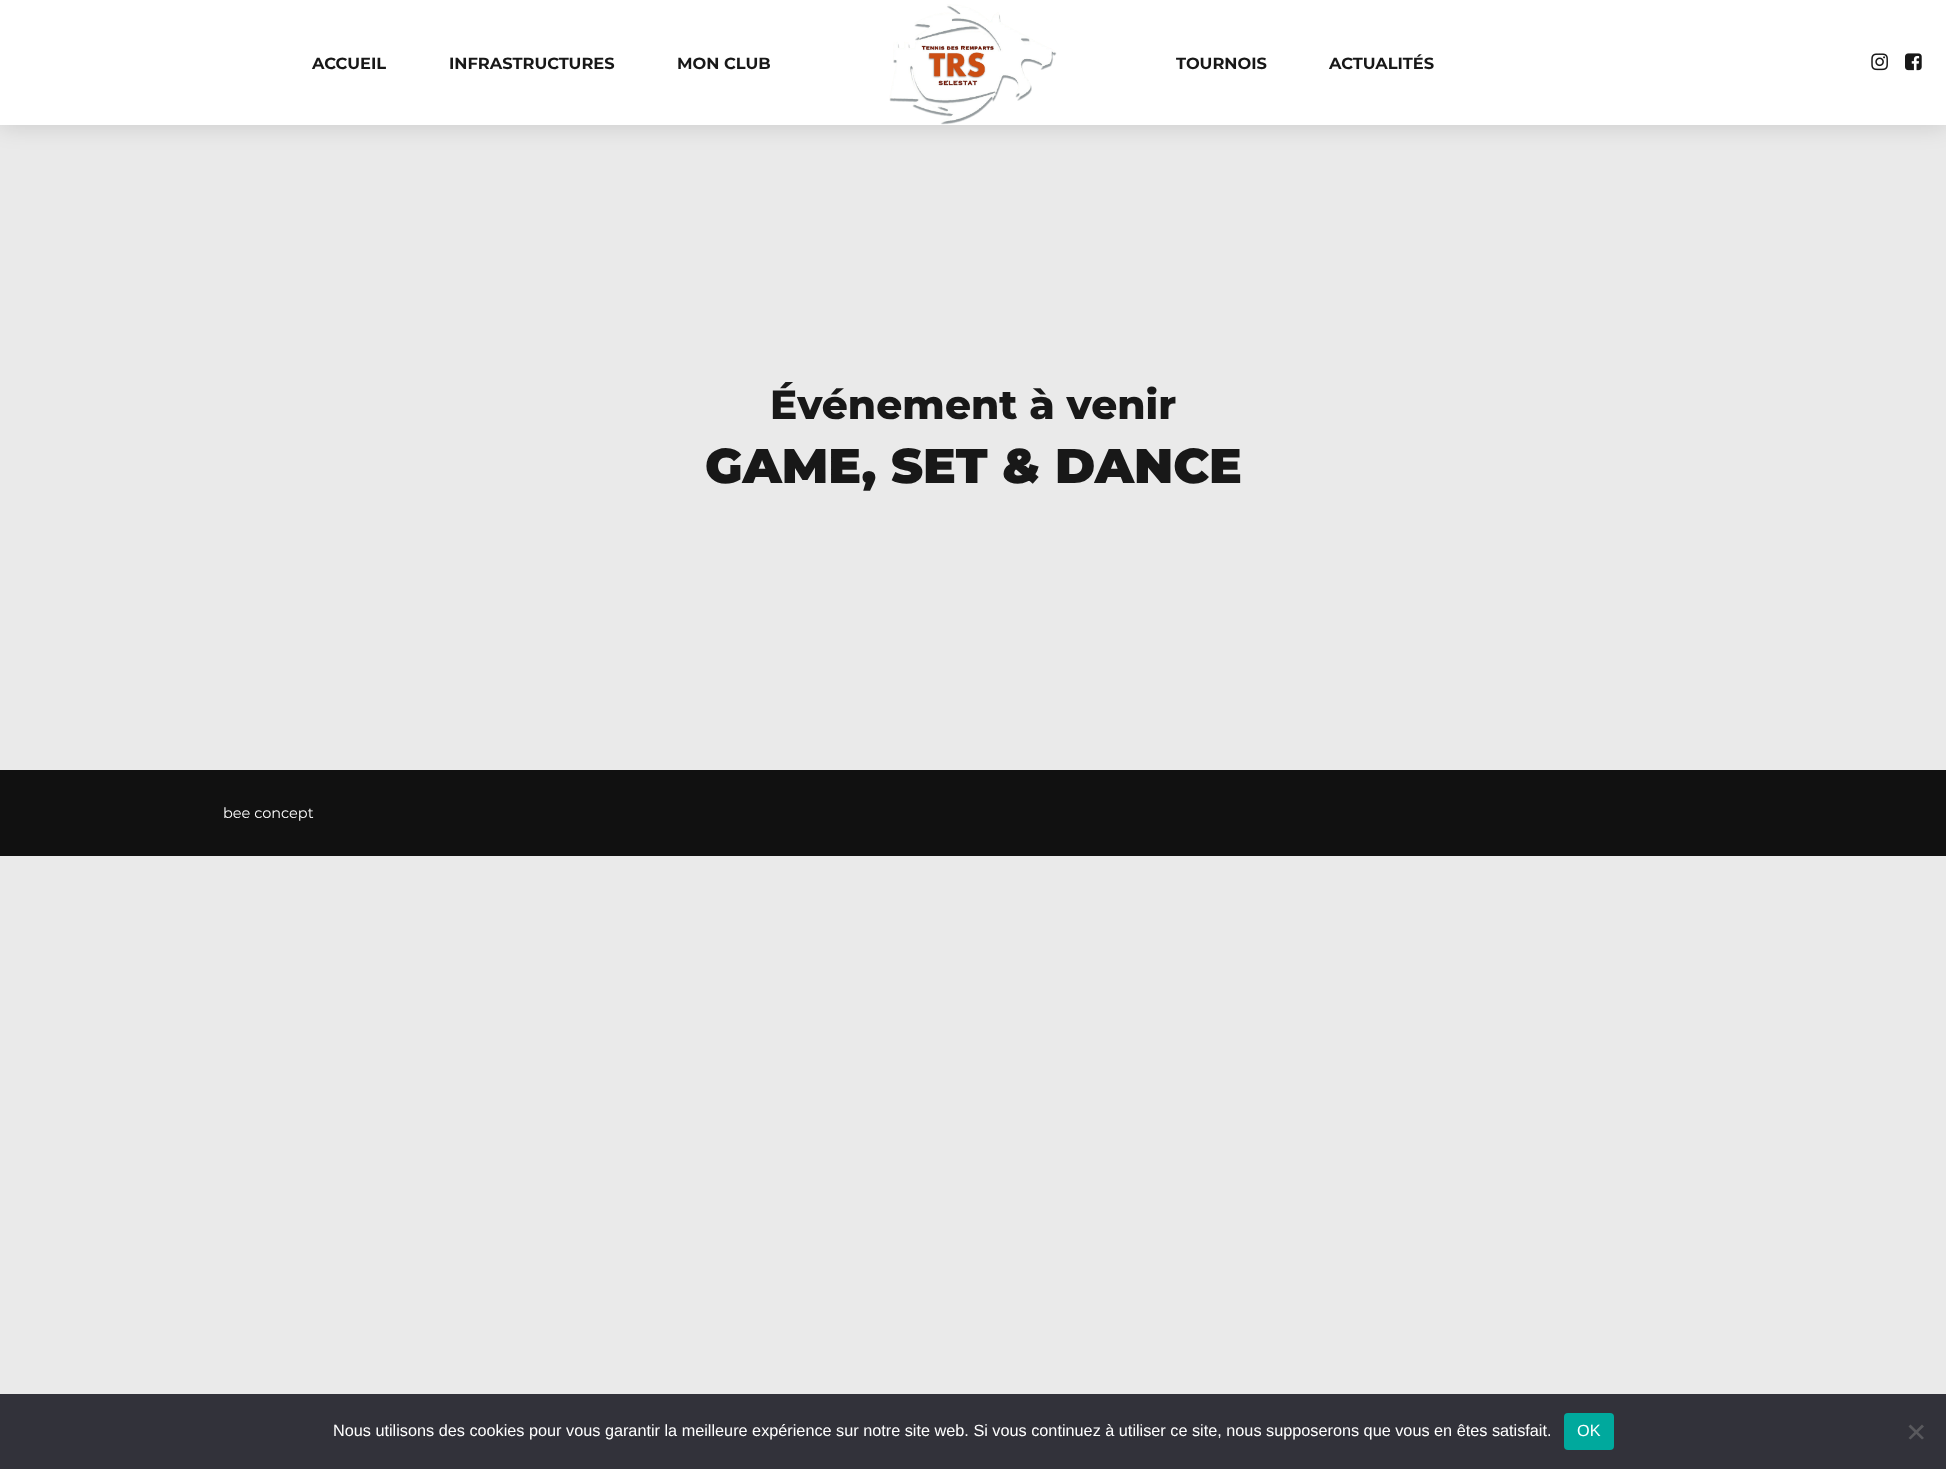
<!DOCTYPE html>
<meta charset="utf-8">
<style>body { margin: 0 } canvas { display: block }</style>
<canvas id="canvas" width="1946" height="1469"></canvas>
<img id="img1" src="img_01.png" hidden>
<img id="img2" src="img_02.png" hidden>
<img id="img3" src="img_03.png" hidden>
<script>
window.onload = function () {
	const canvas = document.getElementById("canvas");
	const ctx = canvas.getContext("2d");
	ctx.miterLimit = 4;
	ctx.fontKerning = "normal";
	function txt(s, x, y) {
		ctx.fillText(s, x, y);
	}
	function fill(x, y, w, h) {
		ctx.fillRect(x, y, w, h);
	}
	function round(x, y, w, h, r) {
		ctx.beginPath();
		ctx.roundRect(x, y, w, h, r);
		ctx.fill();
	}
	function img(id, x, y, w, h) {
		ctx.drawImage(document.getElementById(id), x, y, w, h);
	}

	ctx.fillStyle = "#EAEAEA";
	fill(0, 0, 1946, 1469);
	ctx.fillStyle = "rgba(0, 0, 0, 0.15)";
	ctx.filter = "blur(12.5px)";
	ctx.beginPath();
	ctx.rect(0, -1, 1946, 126);
	ctx.fill();
	ctx.filter = "none";
	ctx.fillStyle = "#FFFFFF";
	fill(0, 0, 1946, 125);
	img("img1", 889, 4, 168, 121);
	img("img2", 1871, 53, 17, 18);
	img("img3", 1905, 53, 17, 18);
	ctx.fillStyle = "#111111";
	fill(0, 770, 1946, 86);
	ctx.fillStyle = "#32323A";
	fill(0, 1394, 1946, 75);
	ctx.fillStyle = "#00A99D";
	round(1564, 1413, 50, 37, 4);
	ctx.fillStyle = "#59595D";
	ctx.beginPath();
	ctx.moveTo(1922, 1424.5);
	ctx.lineTo(1924, 1426.5);
	ctx.lineTo(1910.5, 1439.5);
	ctx.lineTo(1908.5, 1438);
	ctx.closePath();
	ctx.fill();
	ctx.beginPath();
	ctx.moveTo(1908.5, 1426.5);
	ctx.lineTo(1910.5, 1424.5);
	ctx.lineTo(1924, 1438);
	ctx.lineTo(1922, 1439.5);
	ctx.closePath();
	ctx.fill();
	ctx.font = "bold 16.25px Montserrat";
	ctx.fillStyle = "#181818";
	txt("ACCUEIL", 312, 69);
	txt("INFRASTRUCTURES", 449, 69);
	txt("MON CLUB", 677, 69);
	txt("TOURNOIS", 1176, 69);
	txt("ACTUALITÉS", 1329, 69);
	ctx.font = "800 40.6px Montserrat";
	txt("Événement à venir", 770, 419);
	ctx.font = "900 48.75px Montserrat";
	txt("GAME, SET & DANCE", 705, 483);
	ctx.font = "14.5px Montserrat";
	ctx.fillStyle = "#FFFFFF";
	txt("bee concept", 223, 818);
	ctx.font = "16.25px Liberation Sans";
	txt("Nous utilisons des cookies pour vous garantir la meilleure expérience sur notre site web. Si vous continuez à utiliser ce site, nous supposerons que vous en êtes satisfait.", 333, 1436);
	txt("OK", 1577, 1436);
};
</script>
